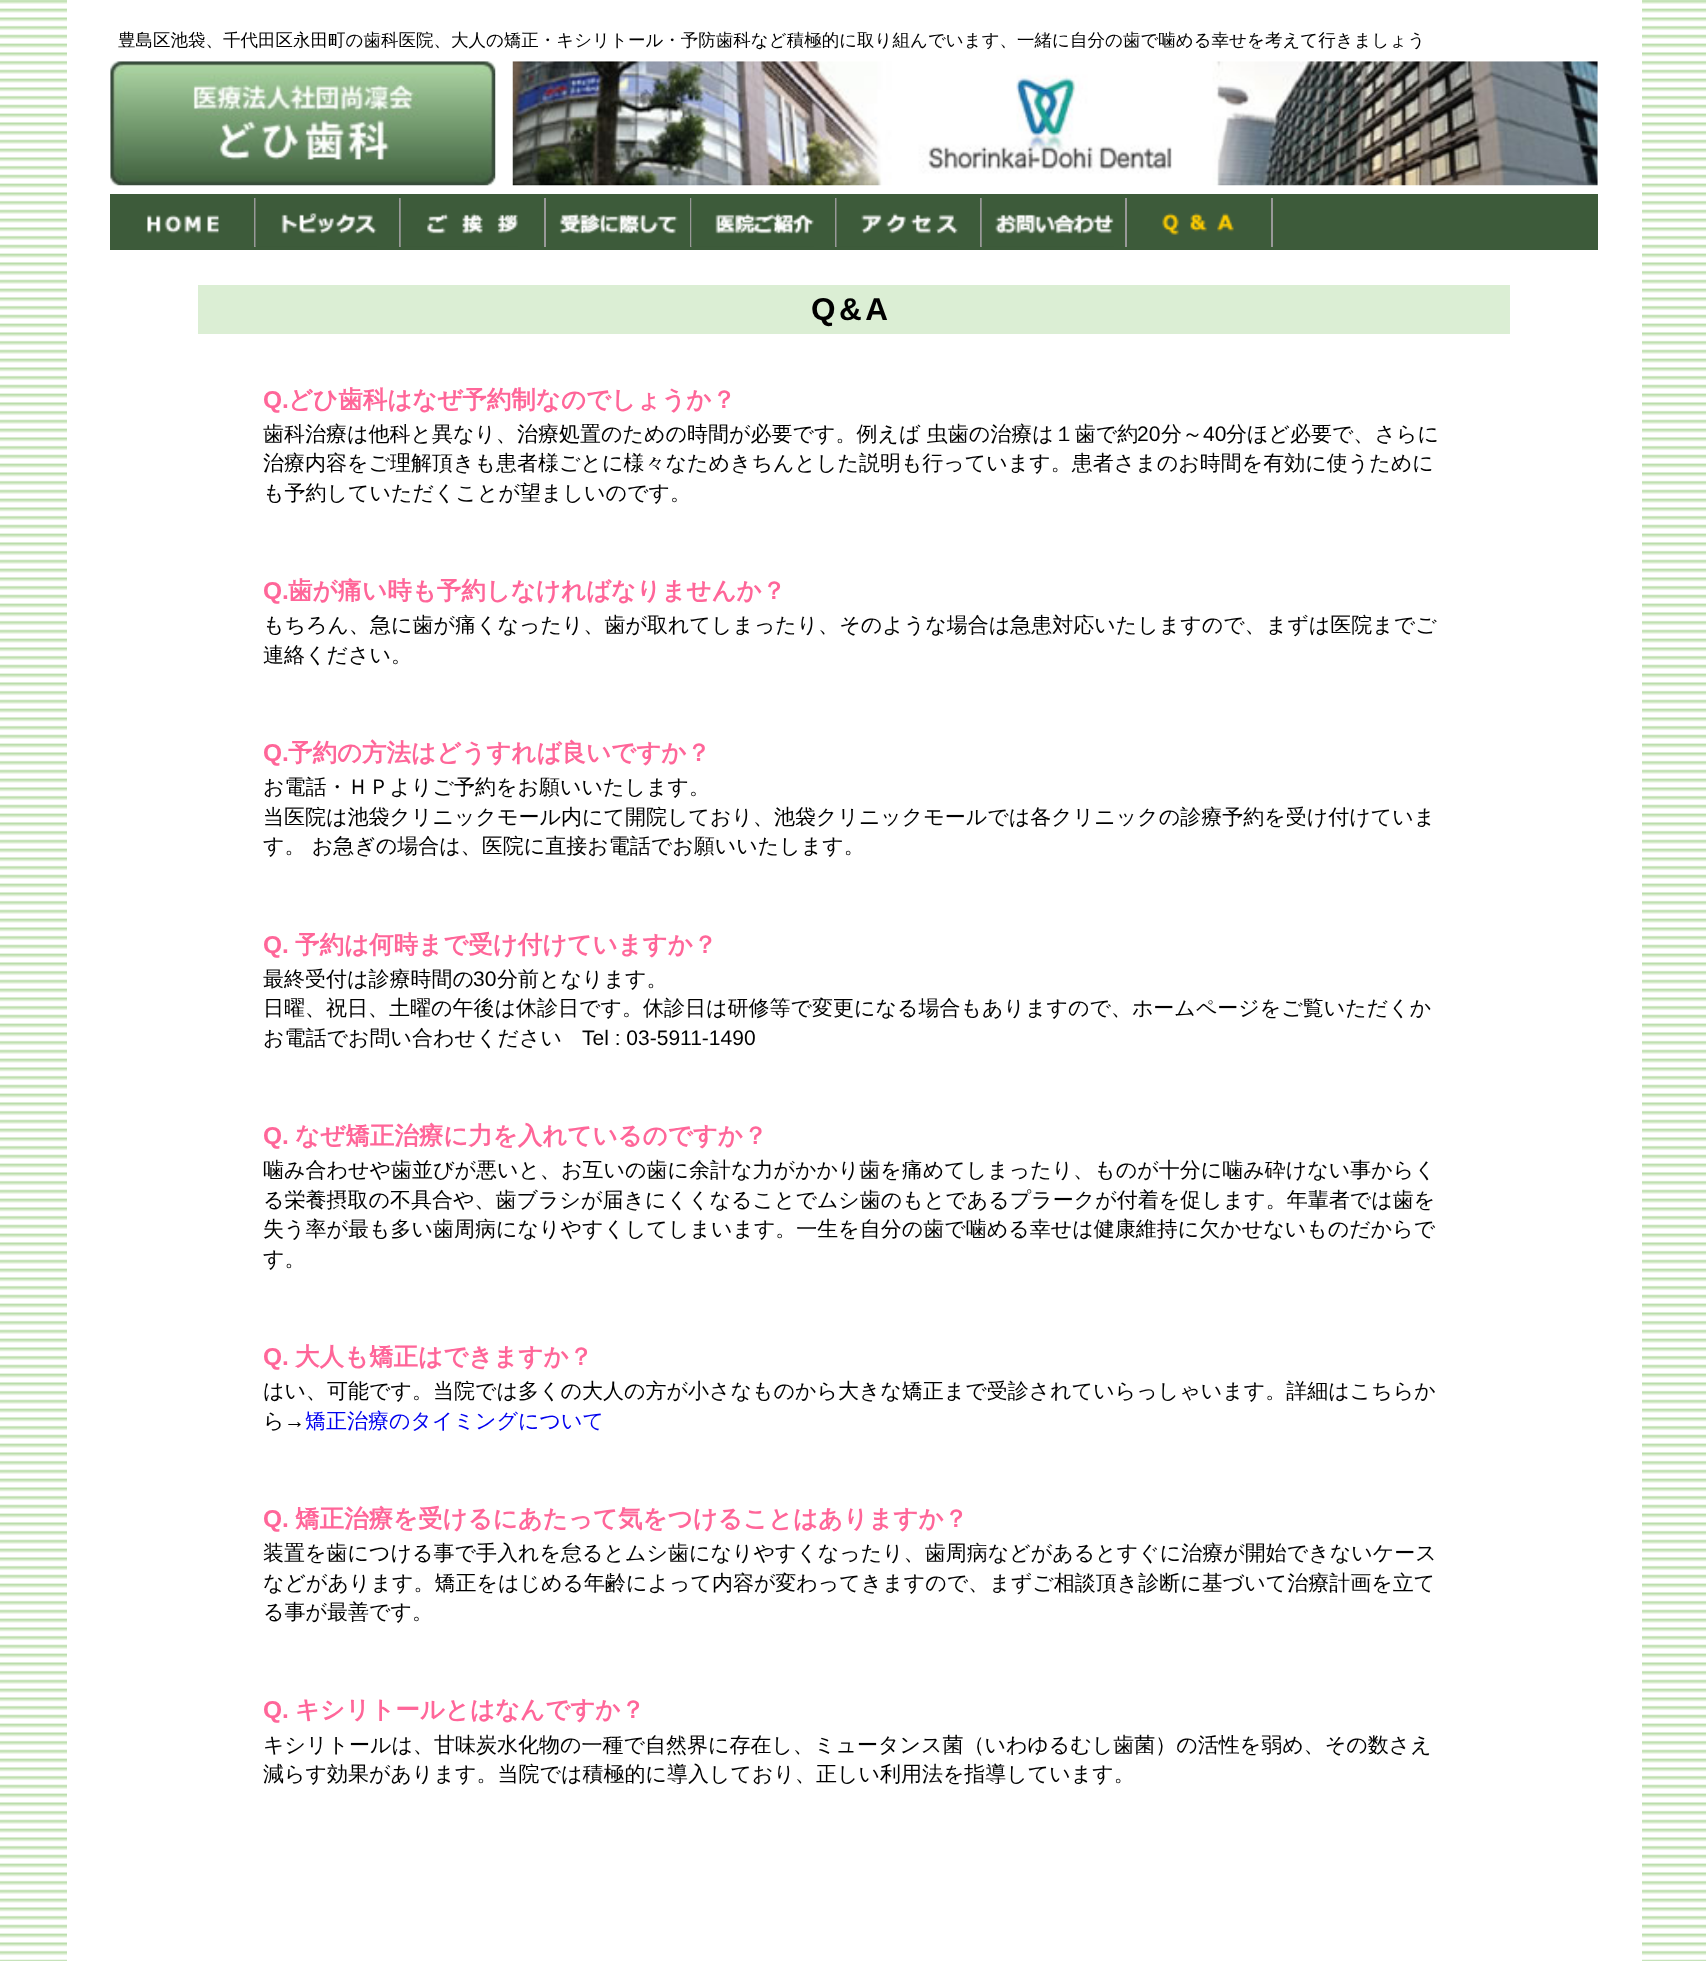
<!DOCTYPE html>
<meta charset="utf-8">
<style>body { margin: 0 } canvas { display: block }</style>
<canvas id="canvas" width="1706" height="1961"></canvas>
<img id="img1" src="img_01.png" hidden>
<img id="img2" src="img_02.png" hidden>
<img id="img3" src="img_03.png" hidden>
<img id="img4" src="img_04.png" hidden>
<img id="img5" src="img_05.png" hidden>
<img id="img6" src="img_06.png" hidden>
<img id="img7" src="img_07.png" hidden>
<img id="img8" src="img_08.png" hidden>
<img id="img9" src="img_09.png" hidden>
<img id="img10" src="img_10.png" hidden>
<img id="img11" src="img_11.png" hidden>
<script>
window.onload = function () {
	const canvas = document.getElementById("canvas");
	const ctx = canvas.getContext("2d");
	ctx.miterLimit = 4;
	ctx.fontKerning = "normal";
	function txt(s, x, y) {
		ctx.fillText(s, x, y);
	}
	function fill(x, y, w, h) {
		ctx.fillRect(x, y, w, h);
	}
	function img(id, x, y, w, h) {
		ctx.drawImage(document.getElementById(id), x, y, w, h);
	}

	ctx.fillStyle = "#FFFFFF";
	fill(0, 0, 1706, 1961);
	img("img1", 0, 0, 1706, 1961);
	fill(67, 0, 1575, 1961);
	img("img2", 110, 61, 386, 125);
	img("img3", 512, 61, 1086, 125);
	ctx.fillStyle = "#3D5B3A";
	fill(110, 194, 1488, 56);
	img("img4", 147, 215, 72, 19);
	ctx.fillStyle = "#999999";
	fill(254, 198, 2, 49);
	img("img5", 255, 198, 122, 49);
	fill(399, 198, 2, 49);
	img("img6", 400, 198, 118, 49);
	fill(544, 198, 2, 49);
	img("img7", 559, 213, 119, 21);
	fill(690, 198, 2, 49);
	img("img8", 691, 198, 123, 49);
	fill(835, 198, 2, 49);
	img("img9", 836, 198, 122, 49);
	fill(980, 198, 2, 49);
	img("img10", 981, 198, 133, 49);
	fill(1125, 198, 2, 49);
	img("img11", 1162, 213, 72, 22);
	fill(1271, 198, 2, 49);
	ctx.fillStyle = "#DBEED4";
	fill(198, 285, 1312, 49);
	ctx.font = "500 17.5px WenQuanYi Zen Hei";
	ctx.fillStyle = "#000000";
	txt("豊島区池袋、千代田区永田町の歯科医院、大人の矯正・キシリトール・予防歯科など積極的に取り組んでいます、一緒に自分の歯で噛める幸せを考えて行きましょう", 118, 46);
	ctx.letterSpacing = "3.5px";
	ctx.font = "bold 31.5px Liberation Sans";
	txt("Q&A", 811, 320);
	ctx.letterSpacing = "0px";
	ctx.font = "bold 24.5px Liberation Sans";
	ctx.fillStyle = "#FF6699";
	txt("Q.", 263, 408);
	ctx.font = "bold 24.5px WenQuanYi Zen Hei";
	txt("どひ歯科はなぜ予約制なのでしょうか？", 288, 408);
	ctx.font = "500 21px WenQuanYi Zen Hei";
	ctx.fillStyle = "#000000";
	txt("歯科治療は他科と異なり、治療処置のための時間が必要です。例えば 虫歯の治療は１歯で約", 263, 441);
	ctx.font = "21px Liberation Sans";
	txt("20", 1137, 441);
	ctx.font = "500 21px WenQuanYi Zen Hei";
	txt("分～", 1161, 441);
	ctx.font = "21px Liberation Sans";
	txt("40", 1203, 441);
	ctx.font = "500 21px WenQuanYi Zen Hei";
	txt("分ほど必要で、さらに", 1226, 441);
	txt("治療内容をご理解頂きも患者様ごとに様々なためきちんとした説明も行っています。患者さまのお時間を有効に使うために", 263, 470);
	txt("も予約していただくことが望ましいのです。", 263, 500);
	ctx.font = "bold 24.5px Liberation Sans";
	ctx.fillStyle = "#FF6699";
	txt("Q.", 263, 599);
	ctx.font = "bold 24.5px WenQuanYi Zen Hei";
	txt("歯が痛い時も予約しなければなりませんか？", 288, 599);
	ctx.font = "500 21px WenQuanYi Zen Hei";
	ctx.fillStyle = "#000000";
	txt("もちろん、急に歯が痛くなったり、歯が取れてしまったり、そのような場合は急患対応いたしますので、まずは医院までご", 263, 632);
	txt("連絡ください。", 263, 662);
	ctx.font = "bold 24.5px Liberation Sans";
	ctx.fillStyle = "#FF6699";
	txt("Q.", 263, 761);
	ctx.font = "bold 24.5px WenQuanYi Zen Hei";
	txt("予約の方法はどうすれば良いですか？", 288, 761);
	ctx.font = "500 21px WenQuanYi Zen Hei";
	ctx.fillStyle = "#000000";
	txt("お電話・ＨＰよりご予約をお願いいたします。", 263, 794);
	txt("当医院は池袋クリニックモール内にて開院しており、池袋クリニックモールでは各クリニックの診療予約を受け付けていま", 263, 824);
	txt("す。 お急ぎの場合は、医院に直接お電話でお願いいたします。", 263, 853);
	ctx.font = "bold 24.5px Liberation Sans";
	ctx.fillStyle = "#FF6699";
	txt("Q.", 263, 953);
	ctx.font = "bold 24.5px WenQuanYi Zen Hei";
	txt("予約は何時まで受け付けていますか？", 295, 953);
	ctx.font = "500 21px WenQuanYi Zen Hei";
	ctx.fillStyle = "#000000";
	txt("最終受付は診療時間の", 263, 986);
	ctx.font = "21px Liberation Sans";
	txt("30", 473, 986);
	ctx.font = "500 21px WenQuanYi Zen Hei";
	txt("分前となります。", 497, 986);
	txt("日曜、祝日、土曜の午後は休診日です。休診日は研修等で変更になる場合もありますので、ホームページをご覧いただくか", 263, 1015);
	txt("お電話でお問い合わせください", 263, 1045);
	ctx.font = "21px Liberation Sans";
	txt("Tel : 03-5911-1490", 582, 1045);
	ctx.font = "bold 24.5px Liberation Sans";
	ctx.fillStyle = "#FF6699";
	txt("Q.", 263, 1144);
	ctx.font = "bold 24.5px WenQuanYi Zen Hei";
	txt("なぜ矯正治療に力を入れているのですか？", 295, 1144);
	ctx.font = "500 21px WenQuanYi Zen Hei";
	ctx.fillStyle = "#000000";
	txt("噛み合わせや歯並びが悪いと、お互いの歯に余計な力がかかり歯を痛めてしまったり、ものが十分に噛み砕けない事からく", 263, 1177);
	txt("る栄養摂取の不具合や、歯ブラシが届きにくくなることでムシ歯のもとであるプラークが付着を促します。年輩者では歯を", 263, 1207);
	txt("失う率が最も多い歯周病になりやすくしてしまいます。一生を自分の歯で噛める幸せは健康維持に欠かせないものだからで", 263, 1236);
	txt("す。", 263, 1266);
	ctx.font = "bold 24.5px Liberation Sans";
	ctx.fillStyle = "#FF6699";
	txt("Q.", 263, 1365);
	ctx.font = "bold 24.5px WenQuanYi Zen Hei";
	txt("大人も矯正はできますか？", 295, 1365);
	ctx.font = "500 21px WenQuanYi Zen Hei";
	ctx.fillStyle = "#000000";
	txt("はい、可能です。当院では多くの大人の方が小さなものから大きな矯正まで受診されていらっしゃいます。詳細はこちらか", 263, 1398);
	txt("ら", 263, 1428);
	ctx.font = "21px Liberation Sans";
	txt("→", 284, 1428);
	ctx.font = "500 21px WenQuanYi Zen Hei";
	ctx.fillStyle = "#0000EE";
	txt("矯正治療のタイミングについて", 305, 1428);
	ctx.font = "bold 24.5px Liberation Sans";
	ctx.fillStyle = "#FF6699";
	txt("Q.", 263, 1527);
	ctx.font = "bold 24.5px WenQuanYi Zen Hei";
	txt("矯正治療を受けるにあたって気をつけることはありますか？", 295, 1527);
	ctx.font = "500 21px WenQuanYi Zen Hei";
	ctx.fillStyle = "#000000";
	txt("装置を歯につける事で手入れを怠るとムシ歯になりやすくなったり、歯周病などがあるとすぐに治療が開始できないケース", 263, 1560);
	txt("などがあります。矯正をはじめる年齢によって内容が変わってきますので、まずご相談頂き診断に基づいて治療計画を立て", 263, 1590);
	txt("る事が最善です。", 263, 1619);
	ctx.font = "bold 24.5px Liberation Sans";
	ctx.fillStyle = "#FF6699";
	txt("Q.", 263, 1718);
	ctx.font = "bold 24.5px WenQuanYi Zen Hei";
	txt("キシリトールとはなんですか？", 295, 1718);
	ctx.font = "500 21px WenQuanYi Zen Hei";
	ctx.fillStyle = "#000000";
	txt("キシリトールは、甘味炭水化物の一種で自然界に存在し、ミュータンス菌（いわゆるむし歯菌）の活性を弱め、その数さえ", 263, 1752);
	txt("減らす効果があります。当院では積極的に導入しており、正しい利用法を指導しています。", 263, 1781);
};
</script>
